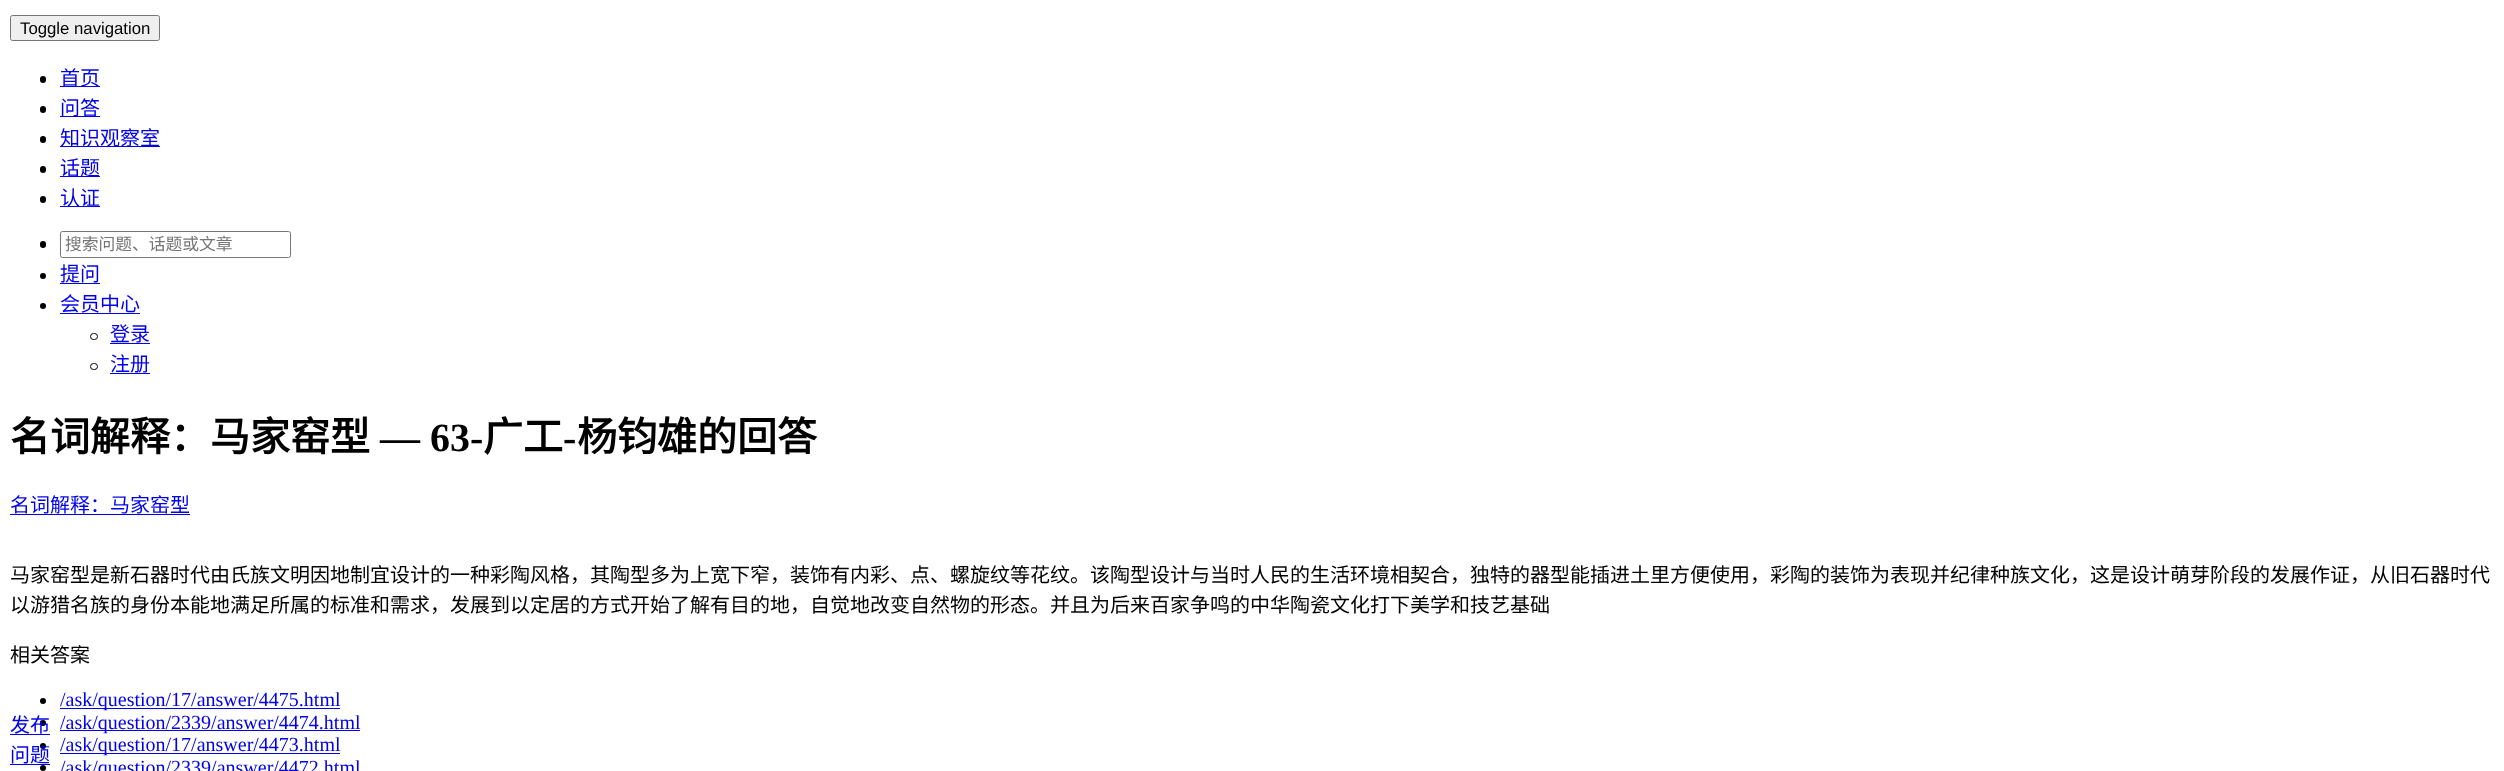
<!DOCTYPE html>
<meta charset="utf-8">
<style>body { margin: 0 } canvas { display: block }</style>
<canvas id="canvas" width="2504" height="771"></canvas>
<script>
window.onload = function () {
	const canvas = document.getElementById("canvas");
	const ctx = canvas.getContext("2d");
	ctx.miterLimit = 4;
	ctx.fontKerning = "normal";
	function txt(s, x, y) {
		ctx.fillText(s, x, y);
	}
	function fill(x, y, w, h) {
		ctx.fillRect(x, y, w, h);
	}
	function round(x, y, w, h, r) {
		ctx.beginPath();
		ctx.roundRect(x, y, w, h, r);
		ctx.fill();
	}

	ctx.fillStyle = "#FFFFFF";
	fill(0, 0, 2504, 771);
	ctx.fillStyle = "#EFEFEF";
	ctx.beginPath();
	ctx.roundRect(10.5, 15.5, 149, 25, 2);
	ctx.fill();
	ctx.strokeStyle = "#767676";
	ctx.stroke();
	ctx.fillStyle = "#000000";
	round(40, 76, 6, 7, 3);
	ctx.fillStyle = "#0000EE";
	fill(60, 86, 40, 1);
	ctx.fillStyle = "#000000";
	round(40, 106, 6, 7, 3);
	ctx.fillStyle = "#0000EE";
	fill(60, 116, 40, 1);
	ctx.fillStyle = "#000000";
	round(40, 136, 6, 7, 3);
	ctx.fillStyle = "#0000EE";
	fill(60, 146, 100, 1);
	ctx.fillStyle = "#000000";
	round(40, 166, 6, 7, 3);
	ctx.fillStyle = "#0000EE";
	fill(60, 176, 40, 1);
	ctx.fillStyle = "#000000";
	round(40, 196, 6, 7, 3);
	ctx.fillStyle = "#0000EE";
	fill(60, 206, 40, 1);
	ctx.fillStyle = "#000000";
	round(40, 241, 6, 7, 3);
	ctx.beginPath();
	ctx.roundRect(60.5, 231.5, 230, 26, 2);
	ctx.stroke();
	ctx.beginPath();
	ctx.arc(43, 276, 3, 0, Math.PI * 2);
	ctx.fill();
	ctx.fillStyle = "#0000EE";
	fill(60, 283, 40, 1);
	ctx.fillStyle = "#000000";
	ctx.beginPath();
	ctx.arc(43, 306, 3, 0, Math.PI * 2);
	ctx.fill();
	ctx.fillStyle = "#0000EE";
	fill(60, 313, 80, 1);
	ctx.beginPath();
	ctx.roundRect(90.5, 333.5, 7, 6, 3);
	ctx.strokeStyle = "#000000";
	ctx.stroke();
	fill(110, 343, 40, 1);
	ctx.beginPath();
	ctx.roundRect(90.5, 363.5, 7, 6, 3);
	ctx.stroke();
	fill(110, 373, 40, 1);
	fill(10, 514, 180, 1);
	ctx.fillStyle = "#000000";
	ctx.beginPath();
	ctx.arc(43, 701, 3, 0, Math.PI * 2);
	ctx.fill();
	ctx.fillStyle = "#0000EE";
	fill(60, 708, 280, 1);
	ctx.fillStyle = "#000000";
	ctx.beginPath();
	ctx.arc(43, 723, 3, 0, Math.PI * 2);
	ctx.fill();
	ctx.fillStyle = "#0000EE";
	fill(60, 730, 300, 1);
	ctx.fillStyle = "#000000";
	ctx.beginPath();
	ctx.arc(43, 746, 3, 0, Math.PI * 2);
	ctx.fill();
	ctx.fillStyle = "#0000EE";
	fill(60, 753, 280, 1);
	ctx.fillStyle = "#000000";
	ctx.beginPath();
	ctx.arc(43, 768, 3, 0, Math.PI * 2);
	ctx.fill();
	ctx.fillStyle = "#0000EE";
	fill(10, 734, 40, 1);
	fill(10, 764, 40, 1);
	ctx.font = "16.75px Liberation Sans";
	ctx.fillStyle = "#000000";
	txt("Toggle navigation", 20, 34);
	ctx.font = "20px Noto Sans CJK SC";
	ctx.fillStyle = "#0000EE";
	txt("首页", 60, 85);
	txt("问答", 60, 115);
	txt("知识观察室", 60, 145);
	txt("话题", 60, 175);
	txt("认证", 60, 205);
	ctx.font = "16.75px Noto Sans CJK SC";
	ctx.fillStyle = "#757575";
	txt("搜索问题、话题或文章", 65, 250);
	ctx.font = "20px Noto Sans CJK SC";
	ctx.fillStyle = "#0000EE";
	txt("提问", 60, 281);
	txt("会员中心", 60, 311);
	txt("登录", 110, 341);
	txt("注册", 110, 371);
	ctx.font = "bold 40px Noto Sans CJK SC";
	ctx.fillStyle = "#000000";
	txt("名词解释：马家窑型", 10, 451);
	ctx.font = "bold 40px Liberation Serif";
	txt("— 63-", 380, 451);
	ctx.font = "bold 40px Noto Sans CJK SC";
	txt("广工", 483, 451);
	ctx.font = "bold 40px Liberation Serif";
	txt("-", 563, 451);
	ctx.font = "bold 40px Noto Sans CJK SC";
	txt("杨钧雄的回答", 577, 451);
	ctx.font = "20px Noto Sans CJK SC";
	ctx.fillStyle = "#0000EE";
	txt("名词解释：马家窑型", 10, 512);
	ctx.fillStyle = "#000000";
	txt("马家窑型是新石器时代由氏族文明因地制宜设计的一种彩陶风格，其陶型多为上宽下窄，装饰有内彩、点、螺旋纹等花纹。该陶型设计与当时人民的生活环境相契合，独特的器型能插进土里方便使用，彩陶的装饰为表现并纪律种族文化，这是设计萌芽阶段的发展作证，从旧石器时代", 10, 582);
	txt("以游猎名族的身份本能地满足所属的标准和需求，发展到以定居的方式开始了解有目的地，自觉地改变自然物的形态。并且为后来百家争鸣的中华陶瓷文化打下美学和技艺基础", 10, 612);
	txt("相关答案", 10, 662);
	ctx.font = "20px Liberation Serif";
	ctx.fillStyle = "#0000EE";
	txt("/ask/question/17/answer/4475.html", 60, 706);
	txt("/ask/question/2339/answer/4474.html", 60, 729);
	txt("/ask/question/17/answer/4473.html", 60, 751);
	txt("/ask/question/2339/answer/4472.html", 60, 774);
	ctx.font = "20px Noto Sans CJK SC";
	txt("发布", 10, 732);
	txt("问题", 10, 762);
};
</script>
